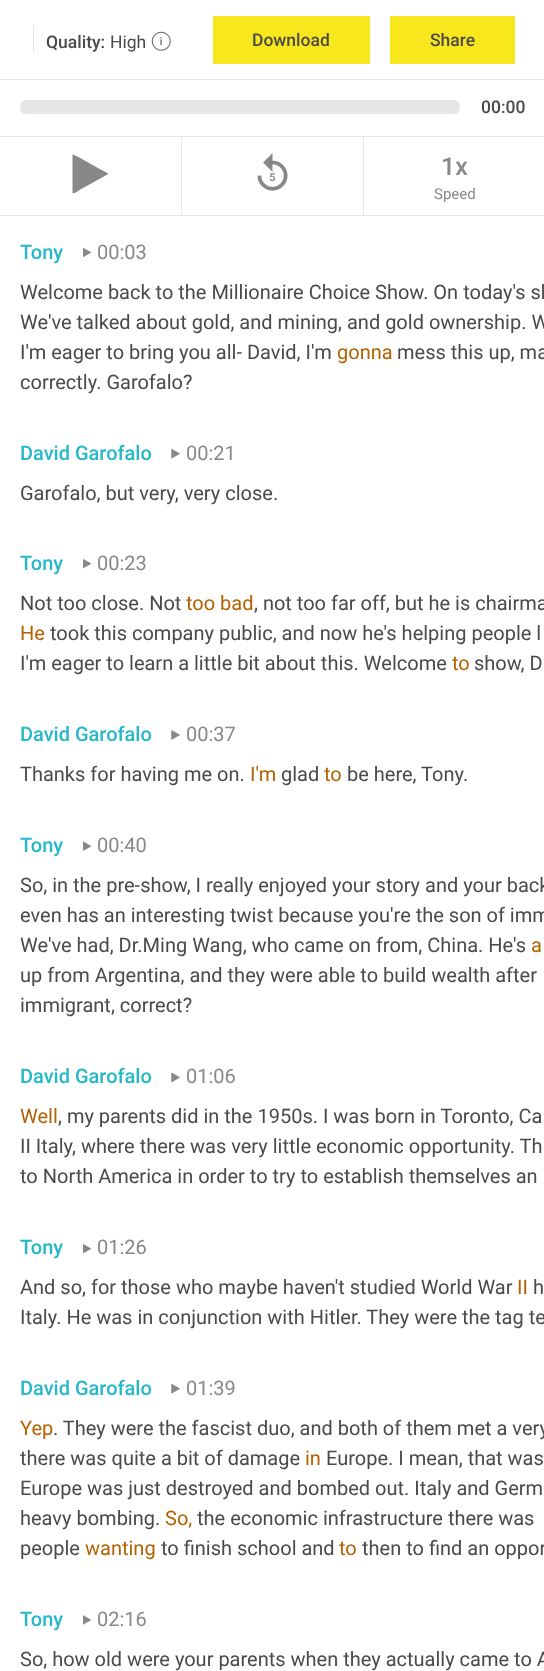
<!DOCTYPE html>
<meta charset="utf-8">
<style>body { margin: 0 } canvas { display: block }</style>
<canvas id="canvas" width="544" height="1671"></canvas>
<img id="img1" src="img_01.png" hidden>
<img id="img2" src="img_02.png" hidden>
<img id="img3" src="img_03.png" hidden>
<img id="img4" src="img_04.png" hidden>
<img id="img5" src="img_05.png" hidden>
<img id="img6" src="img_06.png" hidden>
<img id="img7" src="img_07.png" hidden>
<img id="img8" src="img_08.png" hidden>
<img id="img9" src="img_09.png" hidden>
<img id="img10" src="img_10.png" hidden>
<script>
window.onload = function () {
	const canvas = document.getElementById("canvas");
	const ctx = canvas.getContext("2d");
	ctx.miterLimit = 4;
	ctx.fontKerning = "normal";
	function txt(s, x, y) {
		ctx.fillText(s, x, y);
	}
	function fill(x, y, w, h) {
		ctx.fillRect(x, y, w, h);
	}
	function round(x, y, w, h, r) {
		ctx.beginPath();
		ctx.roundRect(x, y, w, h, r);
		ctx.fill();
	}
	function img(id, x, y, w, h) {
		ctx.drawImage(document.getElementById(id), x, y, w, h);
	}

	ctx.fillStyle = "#FFFFFF";
	fill(0, 0, 544, 1671);
	ctx.fillStyle = "#E6E6E6";
	fill(0, 79, 544, 1);
	fill(33, 26, 1, 27);
	img("img1", 151, 31, 20, 20);
	ctx.fillStyle = "#F8E71C";
	fill(213, 16, 157, 48);
	fill(390, 16, 125, 48);
	ctx.fillStyle = "#E6E6E6";
	round(20, 100, 440, 14, 6);
	fill(0, 136, 544, 1);
	fill(181, 136, 1, 80);
	fill(0, 215, 183, 1);
	ctx.fillStyle = "#888888";
	ctx.beginPath();
	ctx.moveTo(107.5, 174.5);
	ctx.lineTo(79.5, 190);
	ctx.bezierCurveTo(79, 190.5, 73.5, 194.5, 72.5, 193);
	ctx.lineTo(72.5, 155);
	ctx.lineTo(73, 154.5);
	ctx.bezierCurveTo(74, 154.5, 94, 165.5, 96, 167);
	ctx.lineTo(107.5, 173);
	ctx.lineTo(108, 174);
	ctx.closePath();
	ctx.fill();
	ctx.fillStyle = "#E6E6E6";
	fill(363, 136, 1, 80);
	fill(183, 215, 361, 1);
	img("img2", 257, 153, 31, 38);
	img("img3", 83, 248, 8, 10);
	img("img4", 171, 449, 9, 10);
	img("img5", 83, 559, 8, 10);
	img("img6", 171, 730, 9, 10);
	img("img7", 83, 841, 8, 10);
	img("img8", 171, 1073, 9, 10);
	img("img9", 83, 1244, 8, 9);
	img("img4", 171, 1384, 9, 10);
	img("img10", 83, 1615, 8, 10);
	ctx.font = "500 17.5px Roboto";
	ctx.fillStyle = "#4A4A4A";
	txt("Quality:", 46, 48);
	ctx.font = "17.5px Roboto";
	txt("High", 110, 48);
	ctx.font = "500 17.5px Roboto";
	txt("Download", 252, 46);
	txt("Share", 430, 46);
	txt("00:00", 481, 113);
	ctx.font = "500 25px Roboto";
	ctx.fillStyle = "#888888";
	txt("1x", 441, 175);
	ctx.font = "15px Roboto";
	txt("Speed", 434, 199);
	ctx.font = "500 20px Roboto";
	ctx.fillStyle = "#25B9C8";
	txt("Tony", 20, 259);
	ctx.font = "20px Roboto";
	ctx.fillStyle = "#888888";
	txt("00:03", 97, 259);
	ctx.fillStyle = "#4A4A4A";
	txt("Welcome back to the Millionaire Choice Show. On today's sh", 20, 299);
	txt("We've talked about gold, and mining, and gold ownership. W", 20, 329);
	txt("I'm eager to bring you all- David, I'm", 20, 359);
	ctx.fillStyle = "#B46100";
	txt("gonna", 337, 359);
	ctx.fillStyle = "#4A4A4A";
	txt("mess this up, ma", 397, 359);
	txt("correctly. Garofalo?", 20, 389);
	ctx.font = "500 20px Roboto";
	ctx.fillStyle = "#25B9C8";
	txt("David Garofalo", 20, 460);
	ctx.font = "20px Roboto";
	ctx.fillStyle = "#888888";
	txt("00:21", 186, 460);
	ctx.fillStyle = "#4A4A4A";
	txt("Garofalo, but very, very close.", 20, 500);
	ctx.font = "500 20px Roboto";
	ctx.fillStyle = "#25B9C8";
	txt("Tony", 20, 570);
	ctx.font = "20px Roboto";
	ctx.fillStyle = "#888888";
	txt("00:23", 97, 570);
	ctx.fillStyle = "#4A4A4A";
	txt("Not too close. Not", 20, 610);
	ctx.fillStyle = "#B46100";
	txt("too bad", 186, 610);
	ctx.fillStyle = "#4A4A4A";
	txt(", not too far off, but he is chairma", 254, 610);
	ctx.fillStyle = "#B46100";
	txt("He", 20, 640);
	ctx.fillStyle = "#4A4A4A";
	txt("took this company public, and now he's helping people l", 50, 640);
	txt("I'm eager to learn a little bit about this. Welcome", 20, 670);
	ctx.fillStyle = "#B46100";
	txt("to", 452, 670);
	ctx.fillStyle = "#4A4A4A";
	txt("show, D", 474, 670);
	ctx.font = "500 20px Roboto";
	ctx.fillStyle = "#25B9C8";
	txt("David Garofalo", 20, 741);
	ctx.font = "20px Roboto";
	ctx.fillStyle = "#888888";
	txt("00:37", 186, 741);
	ctx.fillStyle = "#4A4A4A";
	txt("Thanks for having me on.", 20, 781);
	ctx.fillStyle = "#B46100";
	txt("I'm", 250, 781);
	ctx.fillStyle = "#4A4A4A";
	txt("glad", 281, 781);
	ctx.fillStyle = "#B46100";
	txt("to", 324, 781);
	ctx.fillStyle = "#4A4A4A";
	txt("be here, Tony.", 347, 781);
	ctx.font = "500 20px Roboto";
	ctx.fillStyle = "#25B9C8";
	txt("Tony", 20, 852);
	ctx.font = "20px Roboto";
	ctx.fillStyle = "#888888";
	txt("00:40", 97, 852);
	ctx.fillStyle = "#4A4A4A";
	txt("So, in the pre-show, I really enjoyed your story and your back", 20, 892);
	txt("even has an interesting twist because you're the son of imm", 20, 922);
	txt("We've had, Dr.Ming Wang, who came on from, China. He's", 20, 952);
	ctx.fillStyle = "#B46100";
	txt("a", 531, 952);
	ctx.fillStyle = "#4A4A4A";
	txt("up from Argentina, and they were able to build wealth after", 20, 982);
	txt("immigrant, correct?", 20, 1012);
	ctx.font = "500 20px Roboto";
	ctx.fillStyle = "#25B9C8";
	txt("David Garofalo", 20, 1083);
	ctx.font = "20px Roboto";
	ctx.fillStyle = "#888888";
	txt("01:06", 186, 1083);
	ctx.fillStyle = "#B46100";
	txt("Well", 20, 1123);
	ctx.fillStyle = "#4A4A4A";
	txt(", my parents did in the 1950s. I was born in Toronto, Ca", 58, 1123);
	txt("II Italy, where there was very little economic opportunity. Th", 20, 1153);
	txt("to North America in order to try to establish themselves an", 20, 1183);
	ctx.font = "500 20px Roboto";
	ctx.fillStyle = "#25B9C8";
	txt("Tony", 20, 1254);
	ctx.font = "20px Roboto";
	ctx.fillStyle = "#888888";
	txt("01:26", 97, 1254);
	ctx.fillStyle = "#4A4A4A";
	txt("And so, for those who maybe haven't studied World War", 20, 1294);
	ctx.fillStyle = "#B46100";
	txt("II", 517, 1294);
	ctx.fillStyle = "#4A4A4A";
	txt("h", 533, 1294);
	txt("Italy. He was in conjunction with Hitler. They were the tag te", 20, 1324);
	ctx.font = "500 20px Roboto";
	ctx.fillStyle = "#25B9C8";
	txt("David Garofalo", 20, 1395);
	ctx.font = "20px Roboto";
	ctx.fillStyle = "#888888";
	txt("01:39", 186, 1395);
	ctx.fillStyle = "#B46100";
	txt("Yep", 20, 1435);
	ctx.fillStyle = "#4A4A4A";
	txt(". They were the fascist duo, and both of them met a very", 53, 1435);
	txt("there was quite a bit of damage", 20, 1465);
	ctx.fillStyle = "#B46100";
	txt("in", 305, 1465);
	ctx.fillStyle = "#4A4A4A";
	txt("Europe. I mean, that was", 326, 1465);
	txt("Europe was just destroyed and bombed out. Italy and Germ", 20, 1495);
	txt("heavy bombing.", 20, 1525);
	ctx.fillStyle = "#B46100";
	txt("So,", 165, 1525);
	ctx.fillStyle = "#4A4A4A";
	txt("the economic infrastructure there was", 197, 1525);
	txt("people", 20, 1555);
	ctx.fillStyle = "#B46100";
	txt("wanting", 85, 1555);
	ctx.fillStyle = "#4A4A4A";
	txt("to finish school and", 161, 1555);
	ctx.fillStyle = "#B46100";
	txt("to", 339, 1555);
	ctx.fillStyle = "#4A4A4A";
	txt("then to find an oppor", 362, 1555);
	ctx.font = "500 20px Roboto";
	ctx.fillStyle = "#25B9C8";
	txt("Tony", 20, 1626);
	ctx.font = "20px Roboto";
	ctx.fillStyle = "#888888";
	txt("02:16", 97, 1626);
	ctx.fillStyle = "#4A4A4A";
	txt("So, how old were your parents when they actually came to A", 20, 1666);
};
</script>
